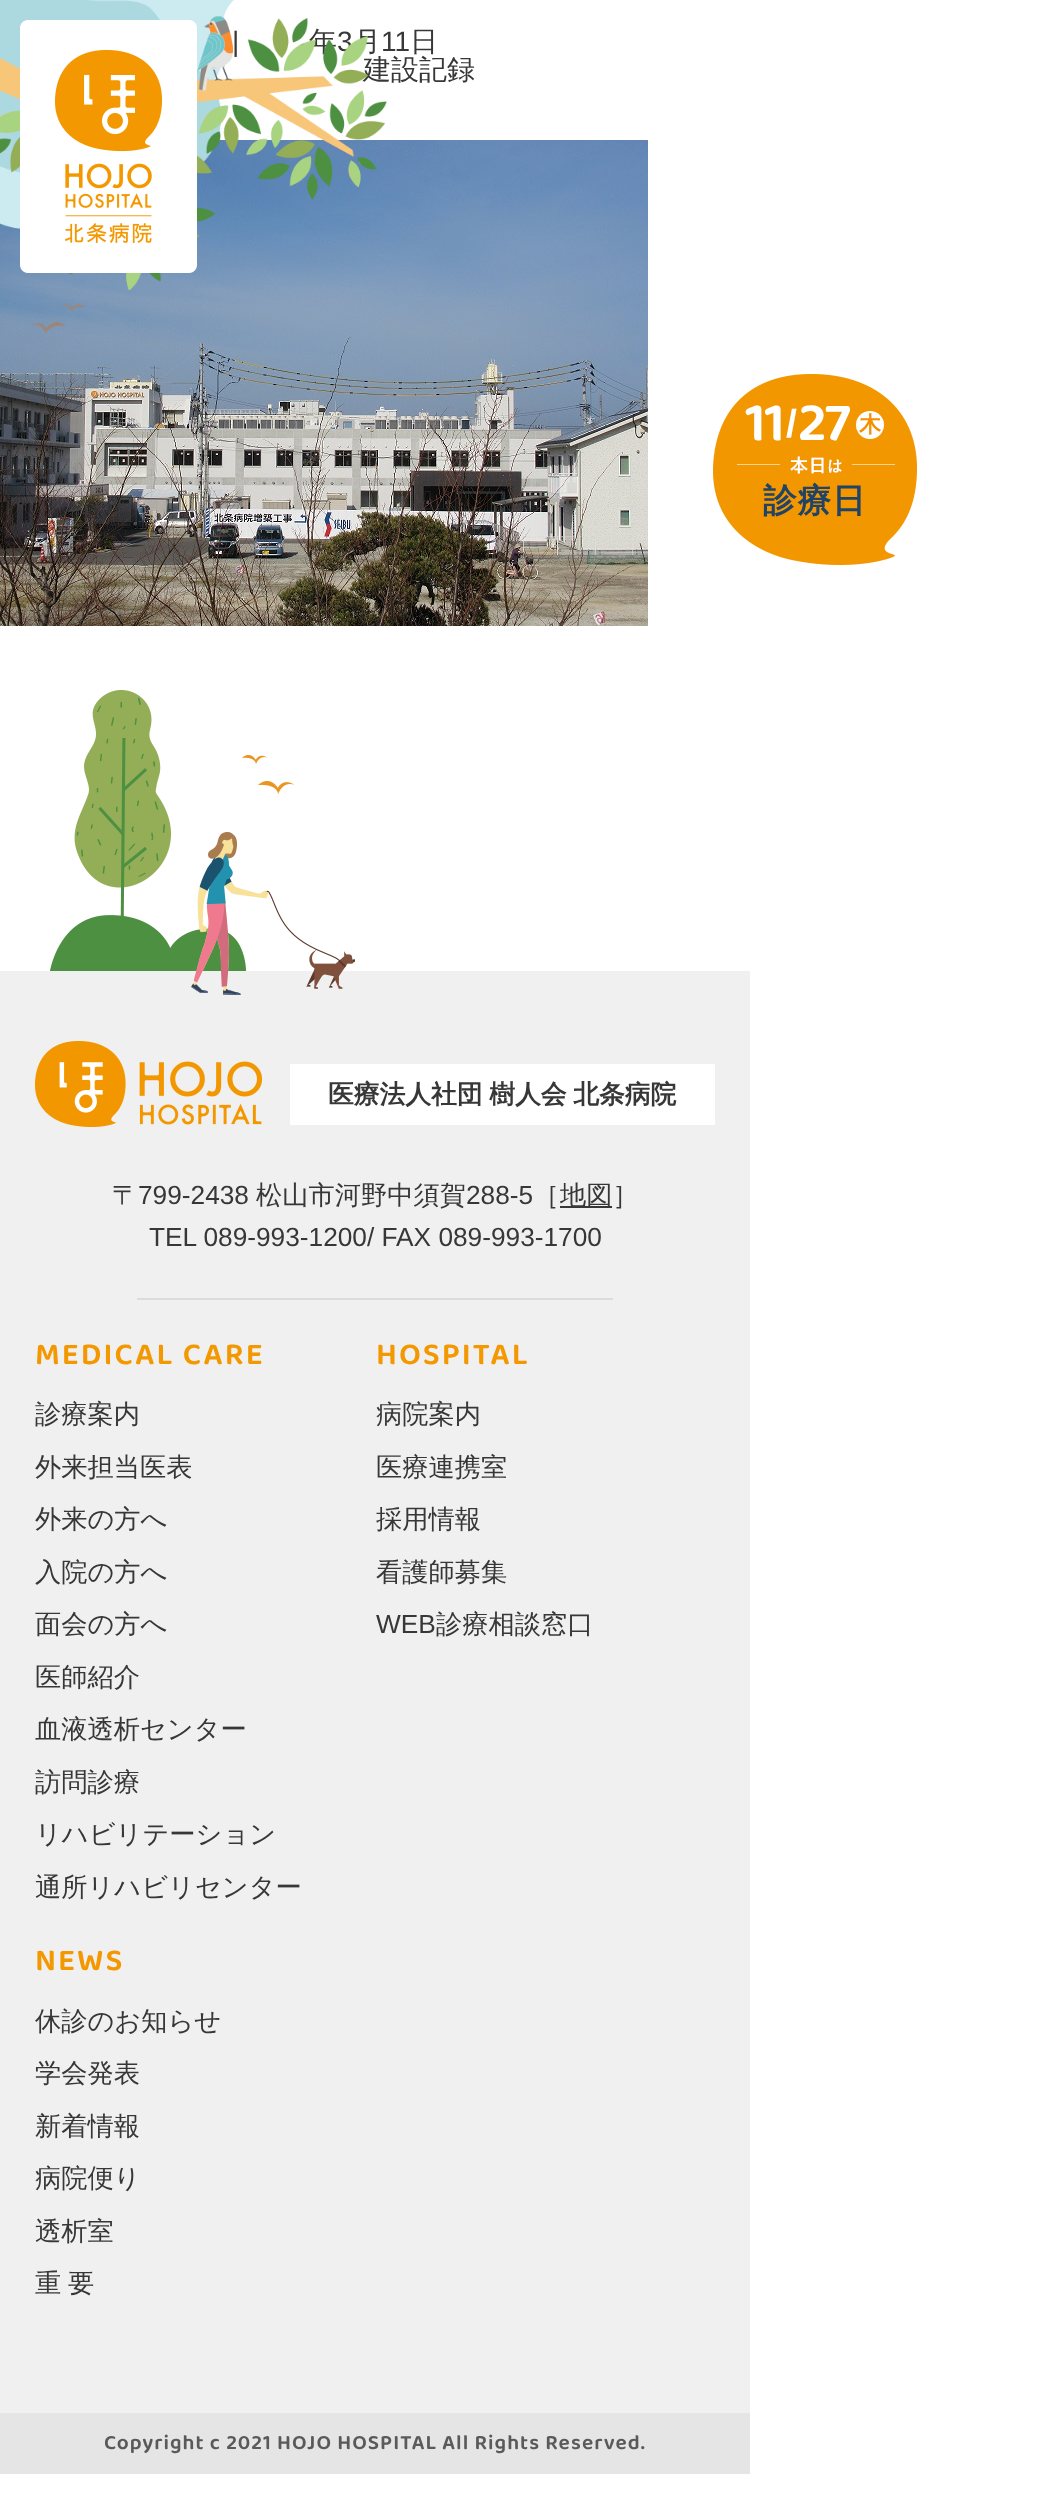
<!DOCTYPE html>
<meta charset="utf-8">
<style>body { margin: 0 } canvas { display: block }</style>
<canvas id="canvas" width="1048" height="2496"></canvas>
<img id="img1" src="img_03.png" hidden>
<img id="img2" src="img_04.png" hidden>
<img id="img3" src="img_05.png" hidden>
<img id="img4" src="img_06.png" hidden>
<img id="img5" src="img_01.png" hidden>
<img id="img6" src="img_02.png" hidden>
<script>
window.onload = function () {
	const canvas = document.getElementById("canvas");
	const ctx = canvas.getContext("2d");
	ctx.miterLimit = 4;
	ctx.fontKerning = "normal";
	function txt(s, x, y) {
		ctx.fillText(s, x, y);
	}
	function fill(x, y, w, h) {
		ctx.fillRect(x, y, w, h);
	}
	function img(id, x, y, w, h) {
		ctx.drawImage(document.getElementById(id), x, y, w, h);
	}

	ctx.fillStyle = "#FFFFFF";
	fill(0, 0, 1048, 2496);
	img("img1", 0, 140, 648, 486);
	img("img2", 713, 374, 204, 191);
	ctx.beginPath();
	ctx.arc(870, 425, 14, 0, Math.PI * 2);
	ctx.fill();
	ctx.fillStyle = "#F0F0F0";
	fill(0, 971, 750, 1442);
	img("img3", 50, 690, 305, 305);
	img("img4", 35, 1041, 227, 86);
	ctx.fillStyle = "#FFFFFF";
	fill(290, 1064, 425, 61);
	ctx.fillStyle = "#373737";
	fill(560, 1206, 52, 2);
	ctx.fillStyle = "#DCDCDC";
	fill(137, 1298, 476, 2);
	ctx.fillStyle = "#E5E5E5";
	fill(0, 2413, 750, 61);
	ctx.font = "28px Liberation Sans";
	ctx.fillStyle = "#373737";
	txt("|", 232, 51);
	ctx.font = "500 28px WenQuanYi Zen Hei";
	txt("年", 309, 51);
	ctx.font = "28px Liberation Sans";
	txt("3", 337, 51);
	ctx.font = "500 28px WenQuanYi Zen Hei";
	txt("月", 353, 51);
	ctx.font = "28px Liberation Sans";
	txt("11", 381, 51);
	ctx.font = "500 28px WenQuanYi Zen Hei";
	txt("日", 410, 51);
	txt("建設記録", 363, 79);
	img("img5", 0, 0, 387, 334);
	img("img6", 20, 20, 177, 253);
	ctx.letterSpacing = "-2px";
	ctx.font = "600 56px 'Baloo Bhai 2'";
	ctx.fillStyle = "#FFFFFF";
	txt("11", 745, 440);
	ctx.font = "bold 39px Liberation Sans";
	txt("/", 786, 437);
	ctx.font = "600 56px 'Baloo Bhai 2'";
	txt("27", 798, 440);
	ctx.letterSpacing = "0px";
	ctx.font = "bold 22px WenQuanYi Zen Hei";
	ctx.fillStyle = "#F38F00";
	txt("木", 859, 432);
	ctx.letterSpacing = "1px";
	ctx.font = "bold 33.5px WenQuanYi Zen Hei";
	ctx.fillStyle = "#214365";
	txt("診療日", 763, 512);
	ctx.letterSpacing = "0px";
	ctx.wordSpacing = "-1px";
	ctx.font = "bold 25.75px WenQuanYi Zen Hei";
	ctx.fillStyle = "#373737";
	txt("医療法人社団 樹人会 北条病院", 328, 1103);
	ctx.wordSpacing = "0px";
	ctx.font = "500 26.25px WenQuanYi Zen Hei";
	txt("〒", 112, 1204);
	ctx.font = "26.25px Liberation Sans";
	txt("799-2438", 138, 1204);
	ctx.font = "500 26.25px WenQuanYi Zen Hei";
	txt("松山市河野中須賀", 256, 1204);
	ctx.font = "26.25px Liberation Sans";
	txt("288-5", 466, 1204);
	ctx.font = "500 26.25px WenQuanYi Zen Hei";
	txt("［", 533, 1204);
	txt("地図］", 560, 1204);
	ctx.font = "26.25px Liberation Sans";
	txt("TEL 089-993-1200/ FAX 089-993-1700", 149, 1246);
	ctx.letterSpacing = "2px";
	ctx.font = "600 31.5px 'Baloo Bhai 2'";
	ctx.fillStyle = "#F39800";
	txt("MEDICAL CARE", 35, 1364);
	ctx.letterSpacing = "0px";
	ctx.font = "500 26.25px WenQuanYi Zen Hei";
	ctx.fillStyle = "#373737";
	txt("診療案内", 35, 1423);
	txt("外来担当医表", 35, 1476);
	txt("外来の方へ", 35, 1528);
	txt("入院の方へ", 35, 1581);
	txt("面会の方へ", 35, 1633);
	txt("医師紹介", 35, 1686);
	txt("血液透析センター", 35, 1738);
	txt("訪問診療", 35, 1791);
	txt("リハビリテーション", 35, 1843);
	txt("通所リハビリセンター", 35, 1896);
	ctx.letterSpacing = "2px";
	ctx.font = "600 31.5px 'Baloo Bhai 2'";
	ctx.fillStyle = "#F39800";
	txt("HOSPITAL", 376, 1364);
	ctx.letterSpacing = "0px";
	ctx.font = "500 26.25px WenQuanYi Zen Hei";
	ctx.fillStyle = "#373737";
	txt("病院案内", 376, 1423);
	txt("医療連携室", 376, 1476);
	txt("採用情報", 376, 1528);
	txt("看護師募集", 376, 1581);
	ctx.font = "26.25px Liberation Sans";
	txt("WEB", 376, 1633);
	ctx.font = "500 26.25px WenQuanYi Zen Hei";
	txt("診療相談窓口", 436, 1633);
	ctx.letterSpacing = "2px";
	ctx.font = "600 31.5px 'Baloo Bhai 2'";
	ctx.fillStyle = "#F39800";
	txt("NEWS", 35, 1970);
	ctx.letterSpacing = "0px";
	ctx.font = "500 26.25px WenQuanYi Zen Hei";
	ctx.fillStyle = "#373737";
	txt("休診のお知らせ", 35, 2030);
	txt("学会発表", 35, 2082);
	txt("新着情報", 35, 2135);
	txt("病院便り", 35, 2187);
	txt("透析室", 35, 2240);
	ctx.wordSpacing = "-1px";
	txt("重 要", 35, 2292);
	ctx.letterSpacing = "1px";
	ctx.wordSpacing = "0px";
	ctx.font = "600 21px 'Baloo Bhai 2'";
	ctx.fillStyle = "#5A5A5A";
	txt("Copyright c 2021 HOJO HOSPITAL All Rights Reserved.", 104, 2449);
};
</script>
